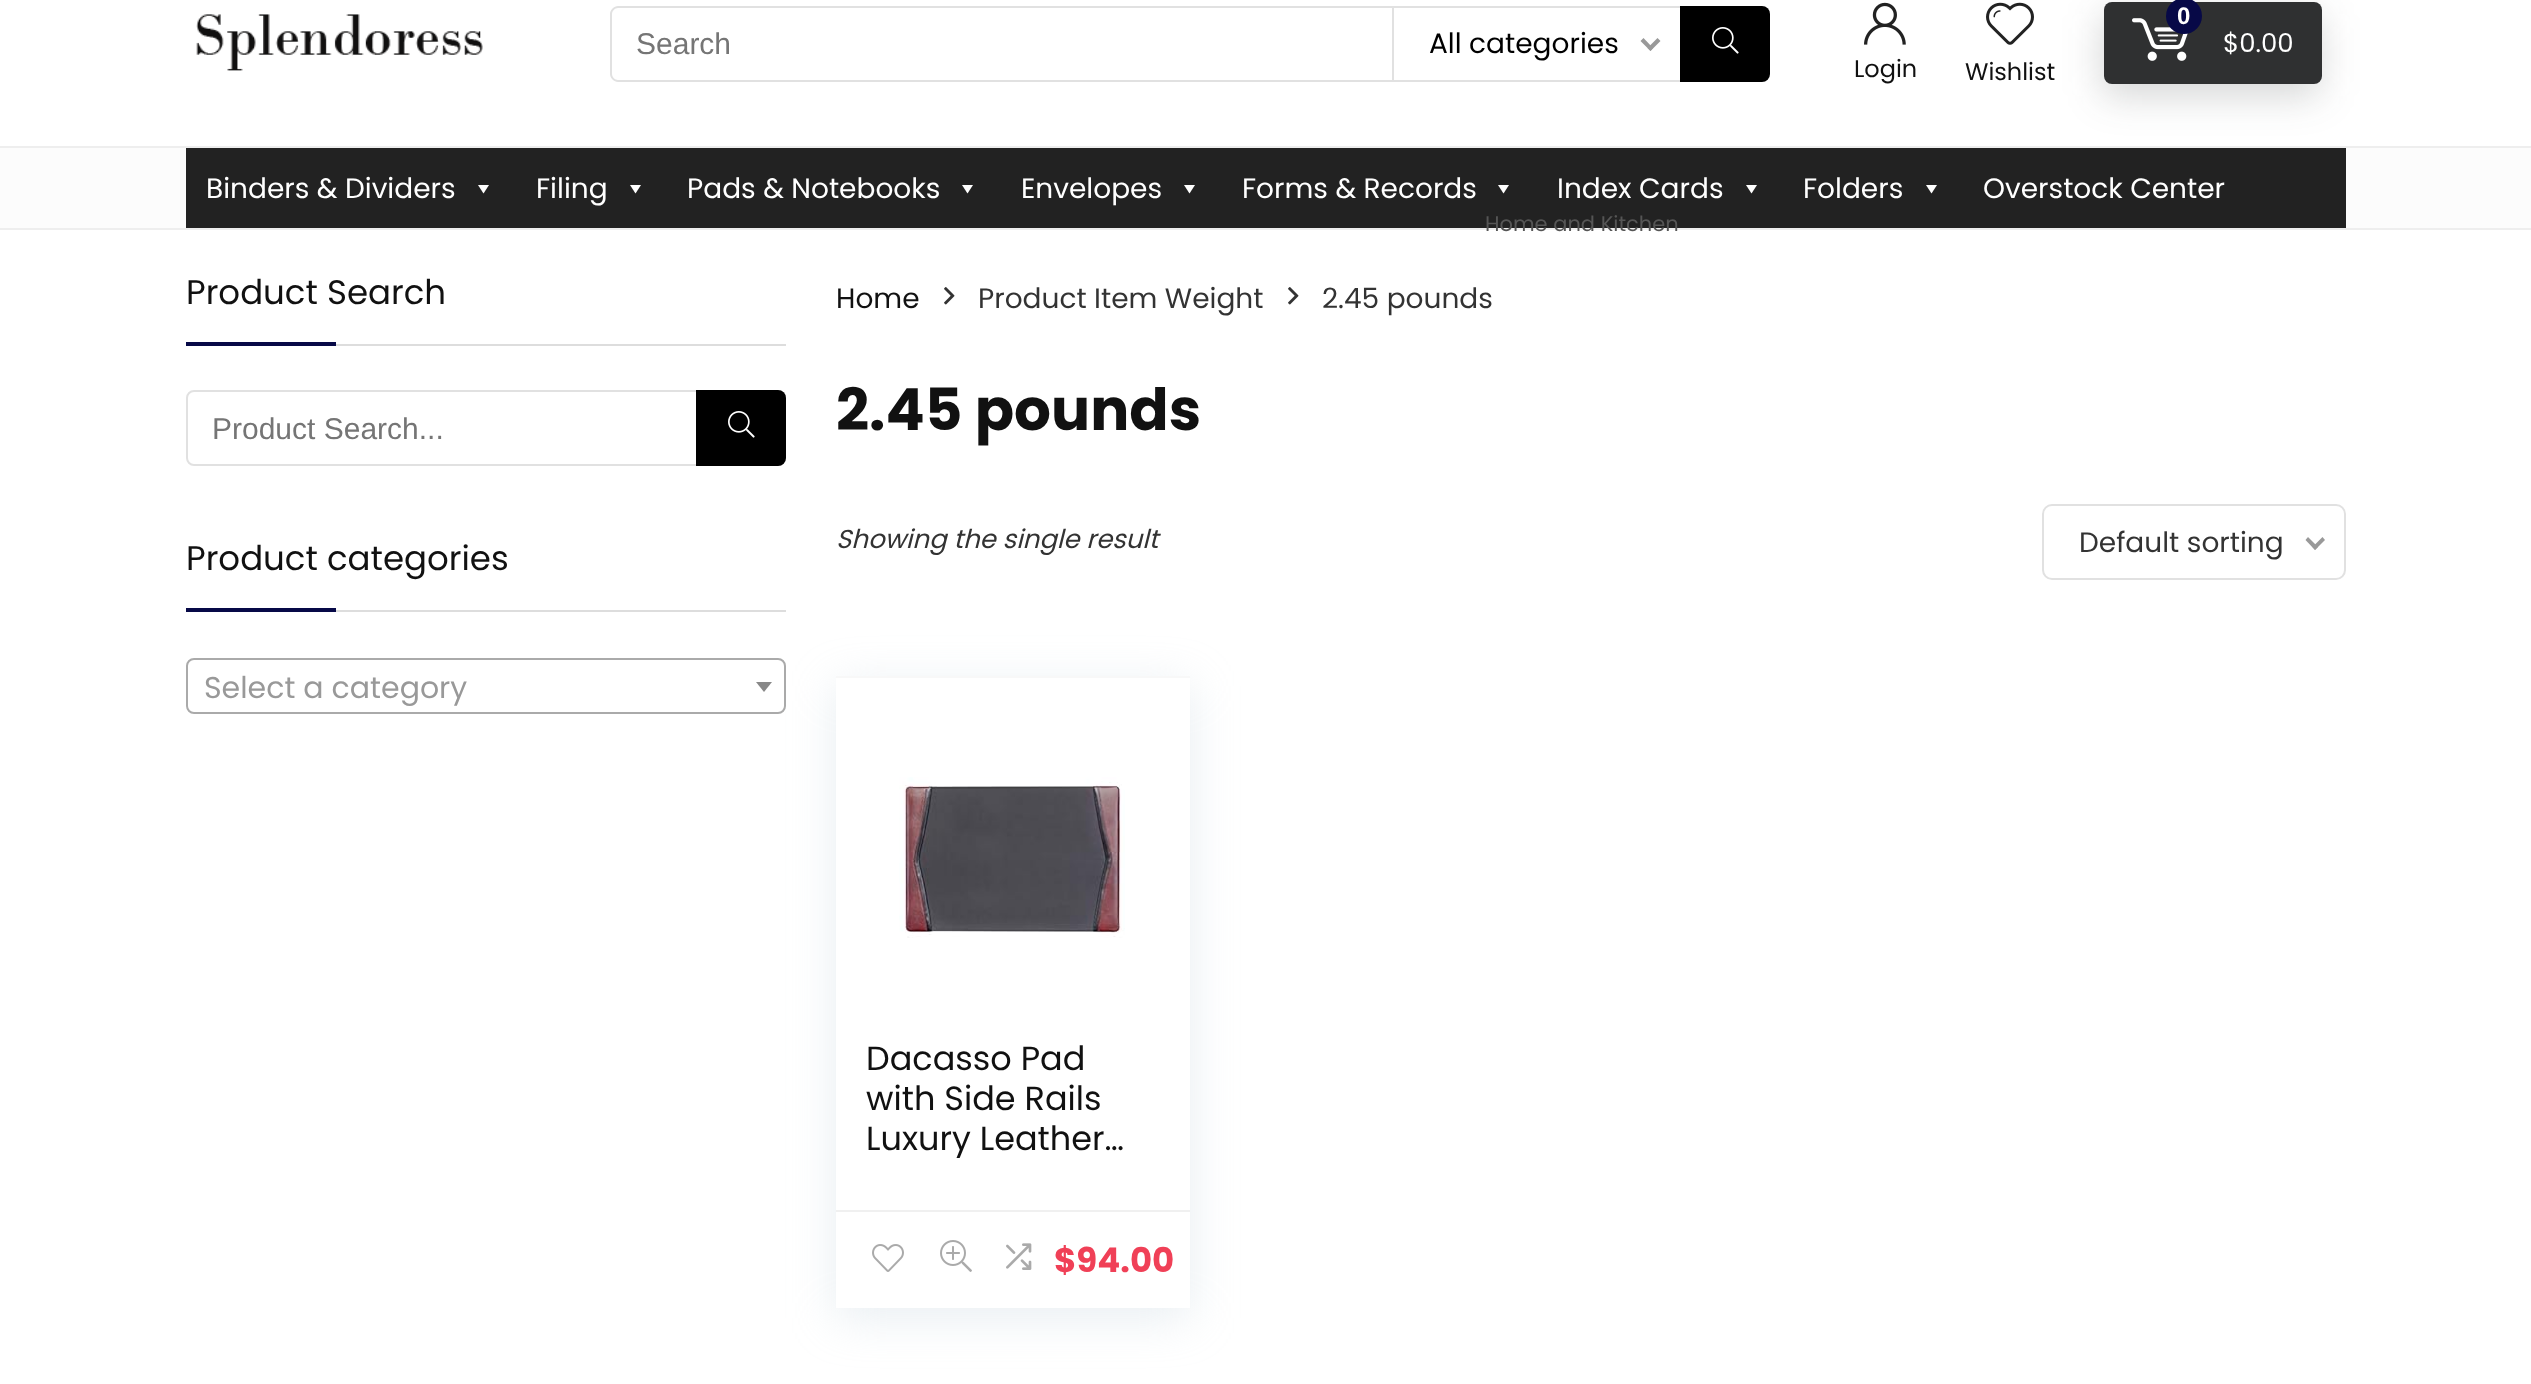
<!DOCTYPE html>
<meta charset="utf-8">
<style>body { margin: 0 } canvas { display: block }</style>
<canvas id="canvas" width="2531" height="1384"></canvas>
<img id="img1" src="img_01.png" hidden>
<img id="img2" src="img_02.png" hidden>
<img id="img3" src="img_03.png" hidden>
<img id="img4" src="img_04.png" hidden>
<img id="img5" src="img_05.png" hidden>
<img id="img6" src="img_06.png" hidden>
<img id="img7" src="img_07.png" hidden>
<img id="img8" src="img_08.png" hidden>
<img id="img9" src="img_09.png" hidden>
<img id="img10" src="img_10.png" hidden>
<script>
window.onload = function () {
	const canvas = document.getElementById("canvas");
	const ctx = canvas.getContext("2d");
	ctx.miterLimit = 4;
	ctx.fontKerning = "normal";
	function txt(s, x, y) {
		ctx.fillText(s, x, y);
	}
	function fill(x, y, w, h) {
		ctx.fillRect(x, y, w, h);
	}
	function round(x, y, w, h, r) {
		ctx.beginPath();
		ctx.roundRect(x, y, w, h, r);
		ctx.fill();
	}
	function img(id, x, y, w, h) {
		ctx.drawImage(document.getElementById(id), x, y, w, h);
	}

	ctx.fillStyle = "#FFFFFF";
	fill(0, 0, 2531, 1384);
	img("img1", 196, 14, 287, 57);
	ctx.fillStyle = "#E1E1E1";
	ctx.beginPath();
	ctx.moveTo(618, 6);
	ctx.lineTo(1392, 6);
	ctx.lineTo(1392, 82);
	ctx.lineTo(618, 82);
	ctx.bezierCurveTo(614, 82, 610, 78, 610, 74);
	ctx.lineTo(610, 14);
	ctx.bezierCurveTo(610, 10, 614, 6, 618, 6);
	ctx.closePath();
	ctx.moveTo(618, 8);
	ctx.lineTo(1392, 8);
	ctx.lineTo(1392, 80);
	ctx.lineTo(618, 80);
	ctx.bezierCurveTo(615, 80, 612, 77, 612, 74);
	ctx.lineTo(612, 14);
	ctx.bezierCurveTo(612, 11, 615, 8, 618, 8);
	ctx.closePath();
	ctx.fill("evenodd");
	fill(1392, 6, 288, 2);
	fill(1392, 80, 288, 2);
	fill(1392, 6, 2, 76);
	ctx.fillStyle = "#999999";
	ctx.beginPath();
	ctx.moveTo(1657.5, 38);
	ctx.lineTo(1660.5, 41);
	ctx.lineTo(1650.5, 51);
	ctx.lineTo(1647.5, 48);
	ctx.closePath();
	ctx.fill();
	ctx.beginPath();
	ctx.moveTo(1643.5, 38);
	ctx.lineTo(1653, 48);
	ctx.lineTo(1650.5, 51);
	ctx.lineTo(1640.5, 41);
	ctx.closePath();
	ctx.fill();
	ctx.fillStyle = "#000000";
	ctx.beginPath();
	ctx.roundRect(1680, 6, 90, 76, [0, 8, 8, 0]);
	ctx.fill();
	img("img2", 1712, 27, 27, 27);
	ctx.fillStyle = "#FCFCFC";
	fill(0, 148, 2531, 80);
	ctx.fillStyle = "#EEEEEE";
	fill(0, 146, 2531, 2);
	ctx.fillStyle = "rgba(47, 48, 49, 0.2)";
	ctx.filter = "blur(19px)";
	ctx.beginPath();
	ctx.roundRect(2102, 14, 218, 82, 8);
	ctx.fill();
	ctx.filter = "none";
	ctx.fillStyle = "#2F3031";
	round(2104, 2, 218, 82, 8);
	img("img3", 2132, 18, 56, 43);
	ctx.fillStyle = "#070947";
	ctx.beginPath();
	ctx.arc(2184, 16, 18, 0, Math.PI * 2);
	ctx.fill();
	img("img4", 1864, 2, 42, 43);
	img("img5", 1986, 2, 48, 43);
	ctx.fillStyle = "#EEEEEE";
	fill(0, 228, 2531, 2);
	ctx.fillStyle = "#222222";
	fill(186, 148, 2160, 80);
	ctx.fillStyle = "#FFFFFF";
	ctx.beginPath();
	ctx.moveTo(489, 185);
	ctx.lineTo(483.5, 193.5);
	ctx.lineTo(478, 185);
	ctx.closePath();
	ctx.fill();
	ctx.beginPath();
	ctx.moveTo(641, 185);
	ctx.lineTo(635.5, 193.5);
	ctx.lineTo(630, 185);
	ctx.closePath();
	ctx.fill();
	ctx.beginPath();
	ctx.moveTo(973, 185);
	ctx.lineTo(967.5, 193.5);
	ctx.lineTo(962, 185);
	ctx.closePath();
	ctx.fill();
	ctx.beginPath();
	ctx.moveTo(1195, 185);
	ctx.lineTo(1189.5, 193.5);
	ctx.lineTo(1184, 185);
	ctx.closePath();
	ctx.fill();
	ctx.beginPath();
	ctx.moveTo(1509, 185);
	ctx.lineTo(1503.5, 193.5);
	ctx.lineTo(1498, 185);
	ctx.closePath();
	ctx.fill();
	ctx.beginPath();
	ctx.moveTo(1757, 185);
	ctx.lineTo(1751.5, 193.5);
	ctx.lineTo(1746, 185);
	ctx.closePath();
	ctx.fill();
	ctx.beginPath();
	ctx.moveTo(1937, 185);
	ctx.lineTo(1931.5, 193.5);
	ctx.lineTo(1926, 185);
	ctx.closePath();
	ctx.fill();
	ctx.fillStyle = "#DDDDDD";
	fill(336, 344, 450, 2);
	ctx.fillStyle = "#070947";
	fill(186, 342, 150, 4);
	ctx.beginPath();
	ctx.roundRect(187, 391, 598, 74, 7);
	ctx.strokeStyle = "#E1E1E1";
	ctx.lineWidth = 2;
	ctx.stroke();
	ctx.fillStyle = "#000000";
	ctx.beginPath();
	ctx.roundRect(696, 390, 90, 76, [0, 8, 8, 0]);
	ctx.fill();
	img("img2", 728, 411, 27, 27);
	ctx.fillStyle = "#DDDDDD";
	fill(336, 610, 450, 2);
	ctx.fillStyle = "#070947";
	fill(186, 608, 150, 4);
	ctx.beginPath();
	ctx.roundRect(187, 659, 598, 54, 7);
	ctx.strokeStyle = "#AAAAAA";
	ctx.stroke();
	ctx.fillStyle = "#888888";
	ctx.beginPath();
	ctx.moveTo(756, 682);
	ctx.lineTo(772, 682);
	ctx.lineTo(764, 692);
	ctx.closePath();
	ctx.fill();
	img("img6", 944, 287, 11, 18);
	img("img6", 1288, 287, 11, 18);
	ctx.beginPath();
	ctx.roundRect(2043, 505, 302, 74, 9);
	ctx.strokeStyle = "#E1E1E1";
	ctx.stroke();
	ctx.fillStyle = "#999999";
	ctx.beginPath();
	ctx.moveTo(2322.5, 537);
	ctx.lineTo(2325, 540);
	ctx.lineTo(2315, 550);
	ctx.lineTo(2312.5, 547);
	ctx.closePath();
	ctx.fill();
	ctx.beginPath();
	ctx.moveTo(2308, 537);
	ctx.lineTo(2318, 547);
	ctx.lineTo(2315, 550);
	ctx.lineTo(2305.5, 540);
	ctx.closePath();
	ctx.fill();
	ctx.save();
	ctx.beginPath();
	ctx.moveTo(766, 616);
	ctx.lineTo(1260, 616);
	ctx.lineTo(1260, 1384);
	ctx.lineTo(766, 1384);
	ctx.closePath();
	ctx.moveTo(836, 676);
	ctx.lineTo(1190, 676);
	ctx.lineTo(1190, 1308);
	ctx.lineTo(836, 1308);
	ctx.closePath();
	ctx.clip("evenodd");
	ctx.fillStyle = "rgba(188, 207, 219, 0.35)";
	ctx.filter = "blur(23px)";
	ctx.beginPath();
	ctx.rect(836, 686, 354, 632);
	ctx.fill();
	ctx.filter = "none";
	ctx.restore();
	ctx.fillStyle = "#F8F8F8";
	fill(836, 676, 354, 2);
	img("img7", 899, 777, 226, 161);
	ctx.fillStyle = "#F0F0F0";
	fill(836, 1210, 354, 2);
	img("img8", 872, 1244, 32, 28);
	img("img9", 940, 1240, 32, 32);
	img("img10", 1006, 1243, 26, 27);
	ctx.font = "30px Liberation Sans";
	ctx.fillStyle = "#757575";
	txt("Search", 636, 54);
	ctx.font = "28px Poppins";
	ctx.fillStyle = "#000000";
	txt("All categories", 1429, 53);
	ctx.font = "21px Poppins";
	ctx.fillStyle = "#555555";
	txt("Home and Kitchen", 1485, 231);
	ctx.font = "bold 24px Liberation Sans";
	ctx.fillStyle = "#FFFFFF";
	txt("0", 2177, 24);
	ctx.font = "26px Poppins";
	txt("$0.00", 2223, 52);
	ctx.font = "24px Poppins";
	ctx.fillStyle = "#111111";
	txt("Login", 1854, 77);
	txt("Wishlist", 1965, 80);
	ctx.font = "28px Poppins";
	ctx.fillStyle = "#FFFFFF";
	txt("Binders & Dividers", 206, 198);
	txt("Filing", 536, 198);
	txt("Pads & Notebooks", 687, 198);
	txt("Envelopes", 1021, 198);
	txt("Forms & Records", 1242, 198);
	txt("Index Cards", 1557, 198);
	txt("Folders", 1803, 198);
	txt("Overstock Center", 1983, 198);
	ctx.font = "34px Poppins";
	ctx.fillStyle = "#111111";
	txt("Product Search", 186, 304);
	ctx.font = "30px Liberation Sans";
	ctx.fillStyle = "#757575";
	txt("Product Search...", 212, 439);
	ctx.font = "34px Poppins";
	ctx.fillStyle = "#111111";
	txt("Product categories", 186, 570);
	ctx.font = "30px Poppins";
	ctx.fillStyle = "#999999";
	txt("Select a category", 204, 698);
	ctx.font = "28px Poppins";
	ctx.fillStyle = "#111111";
	txt("Home", 836, 308);
	ctx.fillStyle = "#333333";
	txt("Product Item Weight", 978, 308);
	txt("2.45 pounds", 1322, 308);
	ctx.font = "bold 58px Poppins";
	ctx.fillStyle = "#111111";
	txt("2.45 pounds", 836, 430);
	ctx.font = "italic 26px Poppins";
	ctx.fillStyle = "#333333";
	txt("Showing the single result", 836, 548);
	ctx.font = "28px Poppins";
	txt("Default sorting", 2079, 552);
	ctx.font = "33.5px Poppins";
	ctx.fillStyle = "#111111";
	txt("Dacasso Pad", 866, 1070);
	txt("with Side Rails", 866, 1110);
	ctx.save();
	ctx.beginPath();
	ctx.rect(866, 1038, 264, 120);
	ctx.clip();
	txt("Luxury Leather…", 866, 1150);
	ctx.restore();
	ctx.font = "bold 34px Poppins";
	ctx.fillStyle = "#F04057";
	txt("$94.00", 1054, 1272);
};
</script>
